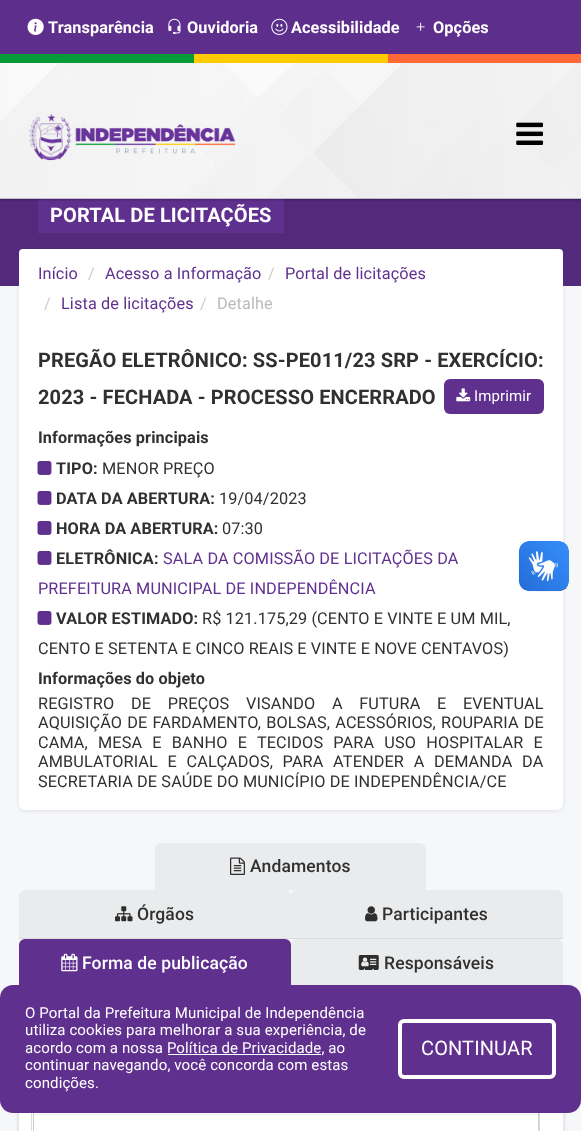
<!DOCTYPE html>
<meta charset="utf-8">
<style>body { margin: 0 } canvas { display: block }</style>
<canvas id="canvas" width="581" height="1131"></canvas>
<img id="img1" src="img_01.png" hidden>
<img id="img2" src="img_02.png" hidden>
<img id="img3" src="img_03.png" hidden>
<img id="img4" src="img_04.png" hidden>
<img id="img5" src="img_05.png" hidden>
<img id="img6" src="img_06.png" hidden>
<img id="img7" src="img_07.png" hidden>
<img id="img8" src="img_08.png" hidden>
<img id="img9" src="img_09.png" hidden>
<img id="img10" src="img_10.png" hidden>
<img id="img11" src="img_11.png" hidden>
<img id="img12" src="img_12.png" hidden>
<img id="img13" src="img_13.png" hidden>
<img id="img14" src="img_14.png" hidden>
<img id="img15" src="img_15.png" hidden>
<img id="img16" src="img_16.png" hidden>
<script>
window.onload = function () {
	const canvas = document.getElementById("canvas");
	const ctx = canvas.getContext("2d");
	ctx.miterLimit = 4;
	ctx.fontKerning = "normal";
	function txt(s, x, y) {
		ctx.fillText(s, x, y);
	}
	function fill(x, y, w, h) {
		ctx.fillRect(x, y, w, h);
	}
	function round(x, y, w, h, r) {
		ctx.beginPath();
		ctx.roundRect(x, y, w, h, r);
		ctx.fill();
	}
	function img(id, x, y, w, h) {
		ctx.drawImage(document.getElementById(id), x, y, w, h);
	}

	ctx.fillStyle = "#F6F7F8";
	fill(0, 0, 581, 1131);
	ctx.fillStyle = "rgba(3, 0, 71, 0.09)";
	ctx.filter = "blur(2px)";
	ctx.beginPath();
	ctx.roundRect(19, 250, 544, 561, 6);
	ctx.fill();
	ctx.filter = "none";
	ctx.fillStyle = "#FFFFFF";
	round(19, 249, 544, 561, 6);
	ctx.fillStyle = "#53297C";
	fill(0, 198, 581, 88);
	ctx.fillStyle = "#60308F";
	fill(38, 198, 246, 35);
	ctx.fillStyle = "rgba(0, 0, 0, 0.3)";
	ctx.filter = "blur(1px)";
	ctx.beginPath();
	ctx.rect(0, 1, 581, 199);
	ctx.fill();
	ctx.filter = "none";
	img("img1", 0, 63, 581, 136);
	ctx.fillStyle = "#5E2E8C";
	fill(0, 0, 581, 54);
	img("img2", 27, 18, 17, 17);
	img("img3", 168, 18, 13, 16);
	img("img4", 271, 18, 17, 17);
	img("img5", 416, 22, 9, 9);
	ctx.fillStyle = "#069A38";
	fill(0, 54, 194, 9);
	ctx.fillStyle = "#FFCC04";
	fill(194, 54, 194, 9);
	ctx.fillStyle = "#FF6837";
	fill(388, 54, 193, 9);
	img("img6", 29, 114, 207, 47);
	img("img7", 516, 122, 28, 23);
	ctx.fillStyle = "#FFFFFF";
	round(19, 249, 544, 80, 4);
	ctx.fillStyle = "#60308F";
	round(444, 379, 100, 35, 6);
	img("img8", 456, 388, 15, 14);
	img("img9", 37, 461, 15, 14);
	img("img9", 37, 491, 15, 14);
	img("img9", 37, 521, 15, 14);
	img("img9", 37, 551, 15, 14);
	img("img9", 37, 611, 15, 14);
	ctx.fillStyle = "#EAEBEC";
	ctx.beginPath();
	ctx.roundRect(155, 843, 271, 47, [6, 6, 0, 0]);
	ctx.fill();
	img("img10", 230, 857, 15, 18);
	ctx.fillStyle = "#DBDBDB";
	fill(19, 938, 544, 1);
	ctx.fillStyle = "#EAEBEC";
	ctx.beginPath();
	ctx.roundRect(19, 890, 272, 48, [6, 6, 0, 0]);
	ctx.fill();
	img("img11", 115, 906, 18, 16);
	ctx.beginPath();
	ctx.roundRect(291, 890, 272, 48, [6, 6, 0, 0]);
	ctx.fill();
	img("img12", 365, 906, 13, 16);
	ctx.fillStyle = "rgba(3, 0, 71, 0.09)";
	ctx.filter = "blur(2px)";
	ctx.beginPath();
	ctx.roundRect(19, 989, 544, 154, 6);
	ctx.fill();
	ctx.filter = "none";
	ctx.filter = "blur(2px)";
	ctx.beginPath();
	ctx.roundRect(19, 989, 544, 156, 8);
	ctx.fill();
	ctx.filter = "none";
	ctx.fillStyle = "#60308F";
	ctx.beginPath();
	ctx.roundRect(19, 939, 272, 47, [6, 6, 0, 0]);
	ctx.fill();
	img("img13", 61, 953, 17, 19);
	ctx.fillStyle = "#EAEBEC";
	ctx.beginPath();
	ctx.roundRect(291, 939, 272, 47, [6, 6, 0, 0]);
	ctx.fill();
	img("img14", 358, 955, 21, 15);
	ctx.fillStyle = "#FFFFFF";
	fill(19, 1113, 544, 18);
	ctx.fillStyle = "#DDDDDD";
	fill(539, 1113, 1, 18);
	fill(31, 1113, 1, 18);
	ctx.strokeStyle = "#CCCCCC";
	ctx.strokeRect(33.5, 1026.5, 505, 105);
	ctx.fillStyle = "#EEEEEE";
	fill(34, 1114, 504, 1);
	img("img15", 518, 541, 51, 51);
	img("img16", 519, 541, 50, 50);
	ctx.fillStyle = "#60308F";
	round(0, 985, 581, 128, 13);
	ctx.fillStyle = "#FFFFFF";
	fill(168, 1054, 153, 1);
	ctx.beginPath();
	ctx.roundRect(400, 1021, 154, 56, 4);
	ctx.strokeStyle = "#FFFFFF";
	ctx.lineWidth = 4;
	ctx.stroke();
	ctx.letterSpacing = "0.12px";
	ctx.font = "bold 16.25px Roboto";
	txt("Transparência", 48, 33);
	txt("Ouvidoria", 187, 33);
	txt("Acessibilidade", 291, 33);
	txt("Opções", 433, 33);
	ctx.font = "bold 20px Roboto";
	txt("PORTAL DE LICITAÇÕES", 50, 222);
	ctx.font = "16.25px Roboto";
	ctx.fillStyle = "#60308F";
	txt("Início", 38, 279);
	ctx.fillStyle = "#CCCCCC";
	txt("/", 88, 279);
	ctx.fillStyle = "#60308F";
	txt("Acesso a Informação", 105, 279);
	ctx.fillStyle = "#CCCCCC";
	txt("/", 268, 279);
	ctx.fillStyle = "#60308F";
	txt("Portal de licitações", 285, 279);
	ctx.fillStyle = "#CCCCCC";
	txt("/", 44, 309);
	ctx.fillStyle = "#60308F";
	txt("Lista de licitações", 61, 309);
	ctx.fillStyle = "#CCCCCC";
	txt("/", 200, 309);
	ctx.fillStyle = "#BBBBBB";
	txt("Detalhe", 217, 309);
	ctx.font = "bold 20px Roboto";
	ctx.fillStyle = "#303030";
	txt("PREGÃO ELETRÔNICO: SS-PE011/23 SRP - EXERCÍCIO:", 38, 367);
	txt("2023 - FECHADA - PROCESSO ENCERRADO", 38, 404);
	ctx.font = "15px Roboto";
	ctx.fillStyle = "#FFFFFF";
	txt("Imprimir", 474, 401);
	ctx.font = "bold 16.25px Roboto";
	ctx.fillStyle = "#303030";
	txt("Informações principais", 38, 443);
	txt("TIPO:", 56, 474);
	ctx.font = "16.25px Roboto";
	txt("MENOR PREÇO", 102, 474);
	ctx.font = "bold 16.25px Roboto";
	txt("DATA DA ABERTURA:", 56, 504);
	ctx.font = "16.25px Roboto";
	txt("19/04/2023", 219, 504);
	ctx.font = "bold 16.25px Roboto";
	txt("HORA DA ABERTURA:", 56, 534);
	ctx.font = "16.25px Roboto";
	txt("07:30", 222, 534);
	ctx.font = "bold 16.25px Roboto";
	txt("ELETRÔNICA:", 56, 564);
	ctx.font = "16.25px Roboto";
	ctx.fillStyle = "#60308F";
	txt("SALA DA COMISSÃO DE LICITAÇÕES DA", 163, 564);
	txt("PREFEITURA MUNICIPAL DE INDEPENDÊNCIA", 38, 594);
	ctx.font = "bold 16.25px Roboto";
	ctx.fillStyle = "#303030";
	txt("VALOR ESTIMADO:", 56, 624);
	ctx.font = "16.25px Roboto";
	txt("R$ 121.175,29 (CENTO E VINTE E UM MIL,", 202, 624);
	txt("CENTO E SETENTA E CINCO REAIS E VINTE E NOVE CENTAVOS)", 38, 654);
	ctx.font = "bold 16.25px Roboto";
	txt("Informações do objeto", 38, 684);
	ctx.wordSpacing = "12.5px";
	ctx.font = "16.25px Roboto";
	txt("REGISTRO DE PREÇOS VISANDO A FUTURA E EVENTUAL", 38, 709);
	ctx.wordSpacing = "1px";
	txt("AQUISIÇÃO DE FARDAMENTO, BOLSAS, ACESSÓRIOS, ROUPARIA DE", 38, 728);
	ctx.wordSpacing = "6px";
	txt("CAMA, MESA E BANHO E TECIDOS PARA USO HOSPITALAR E", 38, 748);
	ctx.wordSpacing = "5.5px";
	txt("AMBULATORIAL E CALÇADOS, PARA ATENDER A DEMANDA DA", 38, 767);
	ctx.wordSpacing = "0px";
	txt("SECRETARIA DE SAÚDE DO MUNICÍPIO DE INDEPENDÊNCIA/CE", 38, 787);
	ctx.font = "500 17.5px Roboto";
	txt("Andamentos", 250, 872);
	txt("Órgãos", 137, 920);
	txt("Participantes", 382, 920);
	ctx.fillStyle = "#FFFFFF";
	txt("Forma de publicação", 82, 969);
	ctx.fillStyle = "#303030";
	txt("Responsáveis", 384, 969);
	ctx.font = "15px Roboto";
	ctx.fillStyle = "#FFFFFF";
	txt("O Portal da Prefeitura Municipal de Independência", 25, 1018);
	txt("utiliza cookies para melhorar a sua experiência, de", 25, 1035);
	txt("acordo com a nossa Política de Privacidade, ao", 25, 1053);
	txt("continuar navegando, você concorda com estas", 25, 1070);
	txt("condições.", 25, 1088);
	ctx.font = "20px Roboto";
	txt("CONTINUAR", 421, 1055);
};
</script>
